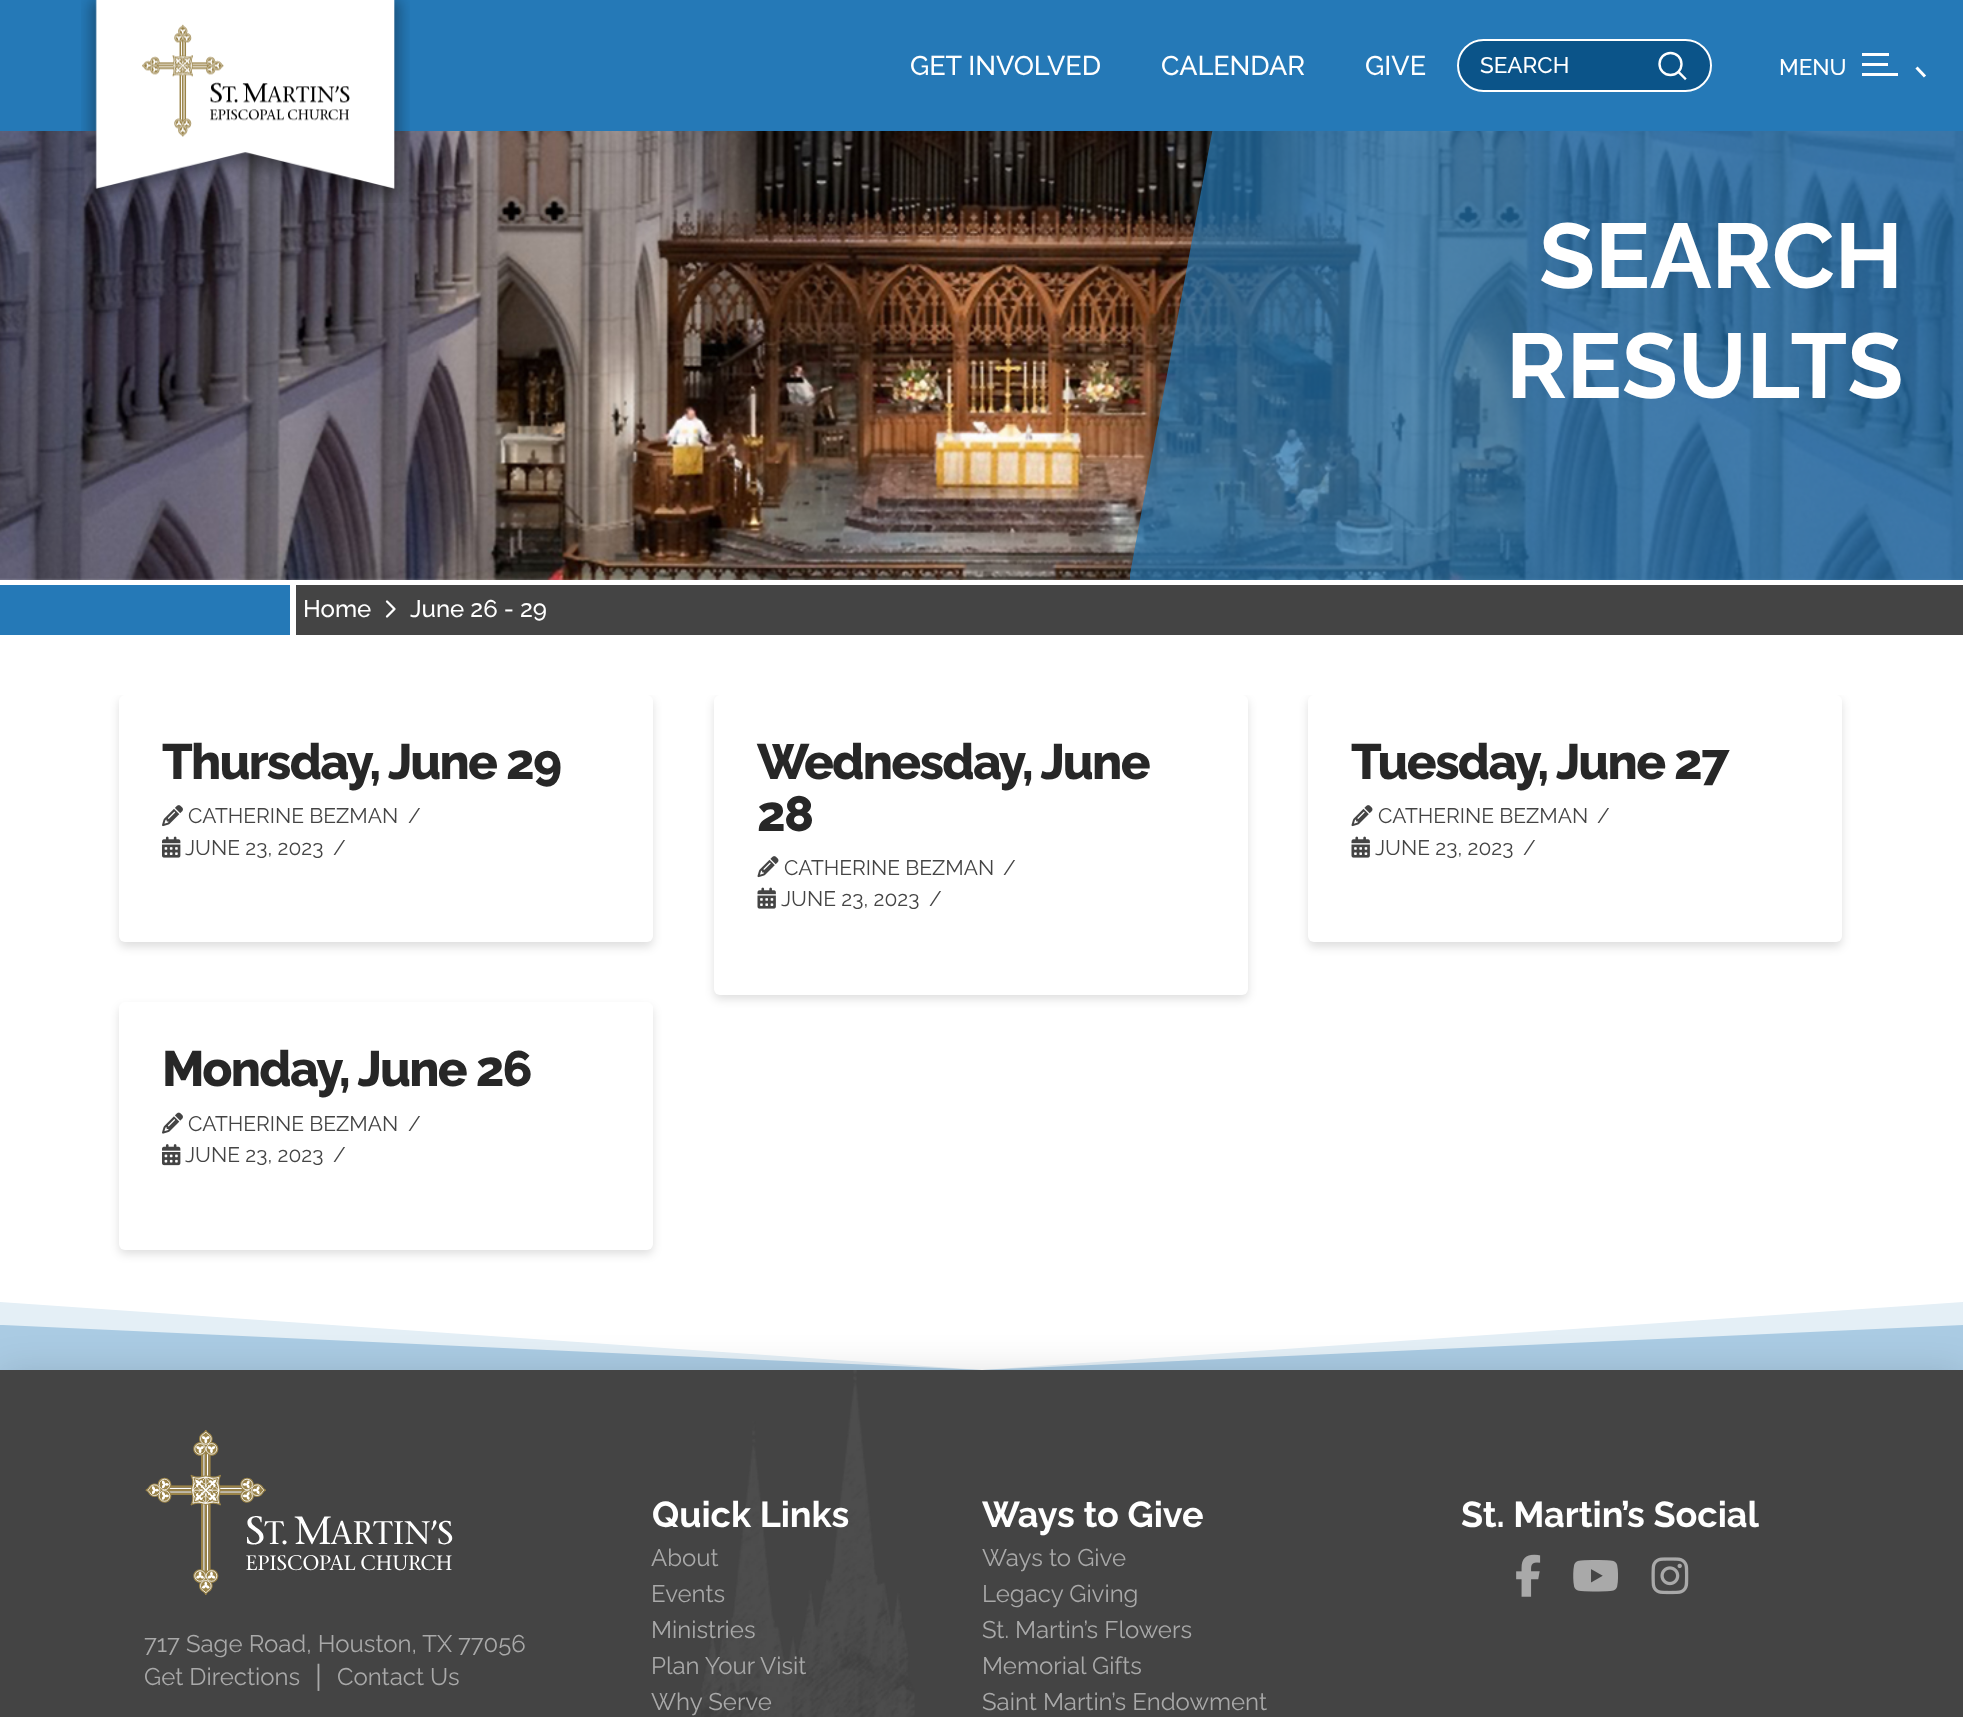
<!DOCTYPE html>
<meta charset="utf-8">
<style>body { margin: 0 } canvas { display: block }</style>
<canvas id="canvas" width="1963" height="1717"></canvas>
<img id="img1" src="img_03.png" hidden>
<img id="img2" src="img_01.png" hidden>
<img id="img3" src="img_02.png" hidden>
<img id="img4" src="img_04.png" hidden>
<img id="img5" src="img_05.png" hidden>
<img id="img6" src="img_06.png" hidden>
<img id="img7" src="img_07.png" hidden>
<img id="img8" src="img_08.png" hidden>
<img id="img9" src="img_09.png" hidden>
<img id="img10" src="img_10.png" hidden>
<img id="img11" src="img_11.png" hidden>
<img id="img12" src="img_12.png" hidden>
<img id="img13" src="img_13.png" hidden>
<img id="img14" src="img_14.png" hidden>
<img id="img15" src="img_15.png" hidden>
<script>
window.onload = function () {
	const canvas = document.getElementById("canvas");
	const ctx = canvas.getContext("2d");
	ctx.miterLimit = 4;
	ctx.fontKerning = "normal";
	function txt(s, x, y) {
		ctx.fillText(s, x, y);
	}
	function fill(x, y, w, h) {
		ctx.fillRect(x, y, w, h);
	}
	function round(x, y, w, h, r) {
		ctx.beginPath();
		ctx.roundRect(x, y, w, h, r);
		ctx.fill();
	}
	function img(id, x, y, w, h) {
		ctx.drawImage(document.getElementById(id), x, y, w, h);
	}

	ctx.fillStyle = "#FFFFFF";
	fill(0, 0, 1963, 1717);
	img("img1", 0, 131, 1963, 449);
	ctx.fillStyle = "rgba(37, 121, 183, 0.7)";
	ctx.beginPath();
	ctx.moveTo(1130, 574);
	ctx.lineTo(1229, 41);
	ctx.lineTo(1963, 41);
	ctx.lineTo(1963, 580);
	ctx.lineTo(1130, 580);
	ctx.closePath();
	ctx.fill();
	ctx.fillStyle = "#2579B7";
	fill(0, 0, 1963, 131);
	img("img2", 81, 0, 329, 203);
	img("img3", 142, 24, 208, 113);
	ctx.fillStyle = "#0B5489";
	ctx.beginPath();
	ctx.roundRect(1458, 40, 253, 51, 25.5);
	ctx.fill();
	ctx.strokeStyle = "#FFFFFF";
	ctx.lineWidth = 2;
	ctx.stroke();
	ctx.beginPath();
	ctx.arc(1670.5, 64, 11, 0, Math.PI * 2);
	ctx.lineWidth = 2.4;
	ctx.stroke();
	ctx.beginPath();
	ctx.moveTo(1685, 78.5);
	ctx.lineTo(1678.5, 72);
	ctx.lineCap = "square";
	ctx.stroke();
	ctx.beginPath();
	ctx.moveTo(1925, 76.5);
	ctx.lineTo(1916.5, 67.5);
	ctx.lineWidth = 3;
	ctx.lineCap = "butt";
	ctx.stroke();
	ctx.fillStyle = "#FFFFFF";
	fill(1862, 53, 27, 3);
	fill(1862, 63, 26, 3);
	fill(1862, 73, 36, 3);
	ctx.fillStyle = "#2579B7";
	fill(0, 585, 290, 50);
	ctx.fillStyle = "#444444";
	fill(296, 585, 1667, 50);
	img("img4", 385, 600, 11, 18);
	ctx.save();
	ctx.beginPath();
	ctx.rect(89, 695, 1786, 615);
	ctx.clip();
	ctx.fillStyle = "rgba(0, 0, 0, 0.13)";
	ctx.filter = "blur(5px)";
	ctx.beginPath();
	ctx.roundRect(119, 699, 534, 248, 6);
	ctx.fill();
	ctx.filter = "none";
	ctx.restore();
	ctx.fillStyle = "#FFFFFF";
	round(119, 695, 534, 247, 6);
	img("img5", 162, 805, 21, 22);
	img("img6", 162, 836, 19, 22);
	ctx.save();
	ctx.beginPath();
	ctx.rect(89, 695, 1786, 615);
	ctx.clip();
	ctx.fillStyle = "rgba(0, 0, 0, 0.13)";
	ctx.filter = "blur(5px)";
	ctx.beginPath();
	ctx.roundRect(714, 699, 534, 300, 6);
	ctx.fill();
	ctx.filter = "none";
	ctx.restore();
	round(714, 695, 534, 300, 6);
	img("img7", 757, 856, 22, 22);
	img("img8", 757, 887, 19, 22);
	ctx.save();
	ctx.beginPath();
	ctx.rect(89, 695, 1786, 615);
	ctx.clip();
	ctx.fillStyle = "rgba(0, 0, 0, 0.13)";
	ctx.filter = "blur(5px)";
	ctx.beginPath();
	ctx.roundRect(1308, 699, 534, 248, 6);
	ctx.fill();
	ctx.filter = "none";
	ctx.restore();
	round(1308, 695, 534, 247, 6);
	img("img7", 1351, 805, 22, 22);
	img("img8", 1351, 836, 19, 22);
	ctx.fillStyle = "rgba(0, 0, 0, 0.13)";
	ctx.filter = "blur(5px)";
	ctx.beginPath();
	ctx.roundRect(119, 1007, 534, 247, 6);
	ctx.fill();
	ctx.filter = "none";
	ctx.fillStyle = "#FFFFFF";
	round(119, 1002, 534, 248, 6);
	img("img9", 162, 1112, 21, 22);
	img("img10", 162, 1144, 19, 22);
	ctx.fillStyle = "#E4EFF6";
	ctx.beginPath();
	ctx.moveTo(982, 1370);
	ctx.lineTo(0, 1302);
	ctx.lineTo(0, 1370);
	ctx.lineTo(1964, 1370);
	ctx.lineTo(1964, 1302);
	ctx.closePath();
	ctx.fill();
	ctx.fillStyle = "#AACBE3";
	ctx.beginPath();
	ctx.moveTo(0, 1325);
	ctx.lineTo(0, 1370);
	ctx.lineTo(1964, 1370);
	ctx.lineTo(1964, 1325);
	ctx.lineTo(982, 1370);
	ctx.lineTo(3, 1325);
	ctx.closePath();
	ctx.fill();
	ctx.fillStyle = "rgba(0, 0, 0, 0.15)";
	ctx.filter = "blur(19px)";
	ctx.beginPath();
	ctx.rect(0, 1374, 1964, 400);
	ctx.fill();
	ctx.filter = "none";
	ctx.fillStyle = "#444444";
	fill(0, 1370, 1963, 347);
	img("img11", 701, 1370, 214, 347);
	img("img12", 1516, 1554, 25, 43);
	img("img13", 1573, 1560, 45, 32);
	img("img14", 1651, 1557, 38, 38);
	img("img15", 145, 1430, 308, 165);
	ctx.font = "500 27px Raleway";
	ctx.fillStyle = "#FFFFFF";
	txt("GET INVOLVED", 910, 75);
	txt("CALENDAR", 1161, 75);
	txt("GIVE", 1365, 75);
	ctx.font = "500 22.5px Raleway";
	txt("SEARCH", 1480, 73);
	txt("MENU", 1779, 75);
	ctx.font = "bold 91.5px Raleway";
	txt("SEARCH", 1539, 288);
	txt("RESULTS", 1506, 398);
	ctx.font = "500 24px Raleway";
	txt("Home", 303, 617);
	txt("June 26 - 29", 410, 617);
	ctx.letterSpacing = "-1.75px";
	ctx.font = "800 49.5px Raleway";
	ctx.fillStyle = "#272727";
	txt("Thursday, June 29", 162, 779);
	ctx.letterSpacing = "0px";
	ctx.font = "21px Raleway";
	ctx.fillStyle = "#444444";
	txt("CATHERINE BEZMAN", 188, 823);
	txt("/", 408, 823);
	txt("JUNE 23, 2023", 185, 855);
	txt("/", 333, 855);
	ctx.letterSpacing = "-1.75px";
	ctx.font = "800 49.5px Raleway";
	ctx.fillStyle = "#272727";
	txt("Wednesday, June", 757, 779);
	txt("28", 757, 831);
	ctx.letterSpacing = "0px";
	ctx.font = "21px Raleway";
	ctx.fillStyle = "#444444";
	txt("CATHERINE BEZMAN", 784, 875);
	txt("/", 1003, 875);
	txt("JUNE 23, 2023", 781, 906);
	txt("/", 929, 906);
	ctx.letterSpacing = "-1.75px";
	ctx.font = "800 49.5px Raleway";
	ctx.fillStyle = "#272727";
	txt("Tuesday, June 27", 1351, 779);
	ctx.letterSpacing = "0px";
	ctx.font = "21px Raleway";
	ctx.fillStyle = "#444444";
	txt("CATHERINE BEZMAN", 1378, 823);
	txt("/", 1597, 823);
	txt("JUNE 23, 2023", 1375, 855);
	txt("/", 1523, 855);
	ctx.letterSpacing = "-1.75px";
	ctx.font = "800 49.5px Raleway";
	ctx.fillStyle = "#272727";
	txt("Monday, June 26", 162, 1086);
	ctx.letterSpacing = "0px";
	ctx.font = "21px Raleway";
	ctx.fillStyle = "#444444";
	txt("CATHERINE BEZMAN", 188, 1131);
	txt("/", 408, 1131);
	txt("JUNE 23, 2023", 185, 1162);
	txt("/", 333, 1162);
	ctx.font = "bold 36px Raleway";
	ctx.fillStyle = "#FFFFFF";
	txt("Quick Links", 652, 1527);
	ctx.font = "24px Raleway";
	ctx.fillStyle = "#A9A9A9";
	txt("About", 651, 1566);
	txt("Events", 651, 1602);
	txt("Ministries", 651, 1638);
	txt("Plan Your Visit", 651, 1674);
	txt("Why Serve", 651, 1710);
	ctx.font = "bold 36px Raleway";
	ctx.fillStyle = "#FFFFFF";
	txt("Ways to Give", 982, 1527);
	ctx.font = "24px Raleway";
	ctx.fillStyle = "#A9A9A9";
	txt("Ways to Give", 982, 1566);
	txt("Legacy Giving", 982, 1602);
	txt("St. Martin’s Flowers", 982, 1638);
	txt("Memorial Gifts", 982, 1674);
	txt("Saint Martin’s Endowment", 982, 1710);
	ctx.font = "bold 36px Raleway";
	ctx.fillStyle = "#FFFFFF";
	txt("St. Martin’s Social", 1461, 1527);
	ctx.font = "24px Raleway";
	ctx.fillStyle = "#A9A9A9";
	txt("717 Sage Road, Houston, TX 77056", 144, 1652);
	txt("Get Directions", 144, 1685);
	ctx.font = "30px Raleway";
	txt("|", 315, 1687);
	ctx.font = "24px Raleway";
	txt("Contact Us", 337, 1685);
};
</script>
